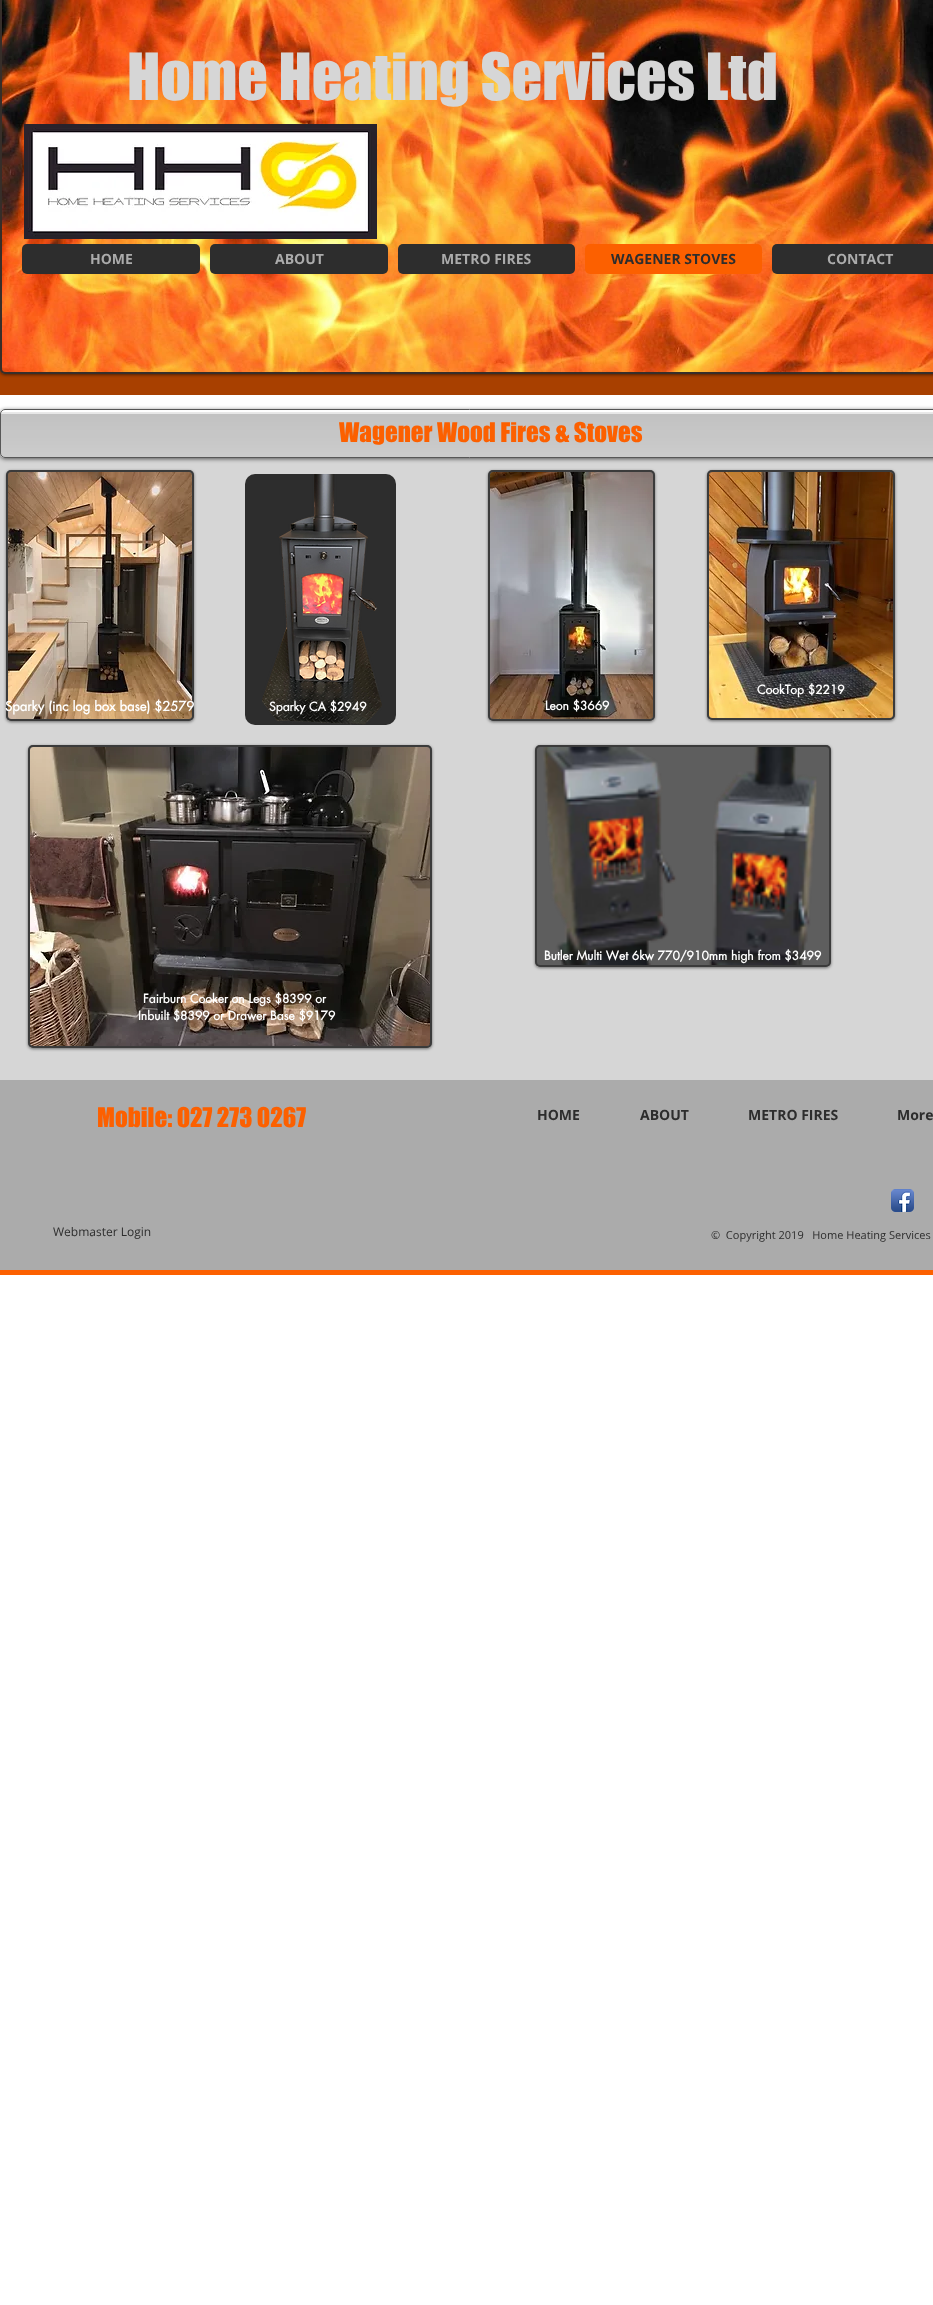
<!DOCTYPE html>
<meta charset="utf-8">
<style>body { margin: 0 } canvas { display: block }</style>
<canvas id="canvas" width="933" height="2305"></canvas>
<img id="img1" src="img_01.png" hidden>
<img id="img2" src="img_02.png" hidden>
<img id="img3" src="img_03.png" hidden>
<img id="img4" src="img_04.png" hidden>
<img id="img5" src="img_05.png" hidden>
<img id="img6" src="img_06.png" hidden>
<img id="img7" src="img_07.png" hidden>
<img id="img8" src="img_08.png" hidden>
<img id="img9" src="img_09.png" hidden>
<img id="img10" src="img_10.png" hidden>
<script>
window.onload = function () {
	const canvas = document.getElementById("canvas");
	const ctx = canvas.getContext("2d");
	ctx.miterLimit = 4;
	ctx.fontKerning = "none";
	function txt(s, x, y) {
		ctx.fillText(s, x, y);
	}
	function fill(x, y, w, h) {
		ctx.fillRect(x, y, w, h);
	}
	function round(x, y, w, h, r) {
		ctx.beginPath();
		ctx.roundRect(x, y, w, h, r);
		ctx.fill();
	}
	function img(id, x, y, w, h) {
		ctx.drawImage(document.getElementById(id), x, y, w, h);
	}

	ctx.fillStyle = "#FFFFFF";
	fill(0, 0, 933, 2305);
	ctx.fillStyle = "#A84000";
	fill(0, 0, 933, 395);
	ctx.save();
	ctx.beginPath();
	ctx.moveTo(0, 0);
	ctx.lineTo(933, 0);
	ctx.lineTo(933, 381);
	ctx.lineTo(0, 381);
	ctx.closePath();
	ctx.moveTo(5, -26);
	ctx.lineTo(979, -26);
	ctx.bezierCurveTo(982, -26, 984, -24, 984, -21);
	ctx.lineTo(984, 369);
	ctx.bezierCurveTo(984, 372, 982, 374, 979, 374);
	ctx.lineTo(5, 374);
	ctx.bezierCurveTo(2, 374, 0, 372, 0, 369);
	ctx.lineTo(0, -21);
	ctx.bezierCurveTo(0, -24, 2, -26, 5, -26);
	ctx.closePath();
	ctx.clip("evenodd");
	ctx.fillStyle = "rgba(0, 0, 0, 0.5)";
	ctx.filter = "blur(1.5px)";
	ctx.beginPath();
	ctx.roundRect(0, -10, 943, 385, 5);
	ctx.fill();
	ctx.filter = "none";
	ctx.restore();
	ctx.fillStyle = "rgba(45, 45, 45, 0.71)";
	round(0, -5, 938, 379, 5);
	ctx.beginPath();
	ctx.roundRect(1, -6, 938, 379, 4);
	ctx.strokeStyle = "rgba(45, 45, 45, 0.71)";
	ctx.lineWidth = 2;
	ctx.stroke();
	img("img1", 2, 0, 931, 372);
	img("img2", 24, 124, 353, 115);
	ctx.fillStyle = "#2D2D2D";
	round(22, 244, 178, 30, 5);
	round(210, 244, 178, 30, 5);
	round(398, 244, 177, 30, 5);
	ctx.fillStyle = "#FC6000";
	round(585, 244, 177, 30, 5);
	ctx.fillStyle = "#2D2D2D";
	round(772, 244, 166, 30, 5);
	ctx.fillStyle = "#D6D6D6";
	fill(0, 414, 933, 666);
	ctx.save();
	ctx.beginPath();
	ctx.moveTo(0, 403);
	ctx.lineTo(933, 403);
	ctx.lineTo(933, 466);
	ctx.lineTo(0, 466);
	ctx.closePath();
	ctx.moveTo(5, 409);
	ctx.lineTo(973, 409);
	ctx.bezierCurveTo(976, 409, 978, 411, 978, 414);
	ctx.lineTo(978, 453);
	ctx.bezierCurveTo(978, 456, 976, 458, 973, 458);
	ctx.lineTo(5, 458);
	ctx.bezierCurveTo(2, 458, 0, 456, 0, 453);
	ctx.lineTo(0, 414);
	ctx.bezierCurveTo(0, 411, 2, 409, 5, 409);
	ctx.closePath();
	ctx.clip("evenodd");
	ctx.fillStyle = "rgba(0, 0, 0, 0.6)";
	ctx.filter = "blur(2px)";
	ctx.beginPath();
	ctx.roundRect(0, 410, 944, 49, 5);
	ctx.fill();
	ctx.filter = "none";
	ctx.restore();
	img("img3", 0, 412, 933, 46);
	ctx.beginPath();
	ctx.roundRect(0.5, 409.5, 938, 48, 4.5);
	ctx.strokeStyle = "#575757";
	ctx.lineWidth = 1;
	ctx.stroke();
	ctx.save();
	ctx.beginPath();
	ctx.moveTo(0, 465);
	ctx.lineTo(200, 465);
	ctx.lineTo(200, 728);
	ctx.lineTo(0, 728);
	ctx.closePath();
	ctx.moveTo(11, 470);
	ctx.lineTo(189, 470);
	ctx.bezierCurveTo(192, 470, 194, 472, 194, 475);
	ctx.lineTo(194, 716);
	ctx.bezierCurveTo(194, 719, 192, 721, 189, 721);
	ctx.lineTo(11, 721);
	ctx.bezierCurveTo(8, 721, 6, 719, 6, 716);
	ctx.lineTo(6, 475);
	ctx.bezierCurveTo(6, 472, 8, 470, 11, 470);
	ctx.closePath();
	ctx.clip("evenodd");
	ctx.fillStyle = "rgba(0, 0, 0, 0.5)";
	ctx.filter = "blur(1.5px)";
	ctx.beginPath();
	ctx.roundRect(6, 471, 188, 251, 5);
	ctx.fill();
	ctx.filter = "none";
	ctx.restore();
	ctx.fillStyle = "rgba(45, 45, 45, 0.71)";
	round(6, 470, 188, 251, 5);
	ctx.beginPath();
	ctx.roundRect(7, 471, 186, 249, 4);
	ctx.strokeStyle = "rgba(45, 45, 45, 0.71)";
	ctx.lineWidth = 2;
	ctx.stroke();
	img("img4", 8, 472, 184, 247);
	ctx.fillStyle = "#2D2D2D";
	round(245, 474, 151, 251, 10);
	img("img5", 262, 474, 120, 251);
	ctx.save();
	ctx.beginPath();
	ctx.moveTo(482, 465);
	ctx.lineTo(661, 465);
	ctx.lineTo(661, 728);
	ctx.lineTo(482, 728);
	ctx.closePath();
	ctx.moveTo(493, 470);
	ctx.lineTo(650, 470);
	ctx.bezierCurveTo(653, 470, 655, 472, 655, 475);
	ctx.lineTo(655, 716);
	ctx.bezierCurveTo(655, 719, 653, 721, 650, 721);
	ctx.lineTo(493, 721);
	ctx.bezierCurveTo(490, 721, 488, 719, 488, 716);
	ctx.lineTo(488, 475);
	ctx.bezierCurveTo(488, 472, 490, 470, 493, 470);
	ctx.closePath();
	ctx.clip("evenodd");
	ctx.fillStyle = "rgba(0, 0, 0, 0.5)";
	ctx.filter = "blur(1.5px)";
	ctx.beginPath();
	ctx.roundRect(488, 471, 167, 251, 5);
	ctx.fill();
	ctx.filter = "none";
	ctx.restore();
	ctx.fillStyle = "rgba(45, 45, 45, 0.71)";
	round(488, 470, 167, 251, 5);
	ctx.beginPath();
	ctx.roundRect(489, 471, 165, 249, 4);
	ctx.stroke();
	img("img6", 490, 472, 163, 247);
	ctx.save();
	ctx.beginPath();
	ctx.moveTo(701, 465);
	ctx.lineTo(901, 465);
	ctx.lineTo(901, 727);
	ctx.lineTo(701, 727);
	ctx.closePath();
	ctx.moveTo(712, 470);
	ctx.lineTo(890, 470);
	ctx.bezierCurveTo(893, 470, 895, 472, 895, 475);
	ctx.lineTo(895, 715);
	ctx.bezierCurveTo(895, 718, 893, 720, 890, 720);
	ctx.lineTo(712, 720);
	ctx.bezierCurveTo(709, 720, 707, 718, 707, 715);
	ctx.lineTo(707, 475);
	ctx.bezierCurveTo(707, 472, 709, 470, 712, 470);
	ctx.closePath();
	ctx.clip("evenodd");
	ctx.fillStyle = "rgba(0, 0, 0, 0.5)";
	ctx.filter = "blur(1.5px)";
	ctx.beginPath();
	ctx.roundRect(707, 471, 188, 250, 5);
	ctx.fill();
	ctx.filter = "none";
	ctx.restore();
	round(707, 470, 188, 250, 5);
	ctx.beginPath();
	ctx.roundRect(708, 471, 186, 248, 4);
	ctx.stroke();
	img("img7", 709, 472, 184, 246);
	ctx.save();
	ctx.beginPath();
	ctx.moveTo(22, 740);
	ctx.lineTo(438, 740);
	ctx.lineTo(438, 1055);
	ctx.lineTo(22, 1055);
	ctx.closePath();
	ctx.moveTo(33, 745);
	ctx.lineTo(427, 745);
	ctx.bezierCurveTo(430, 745, 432, 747, 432, 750);
	ctx.lineTo(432, 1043);
	ctx.bezierCurveTo(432, 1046, 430, 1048, 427, 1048);
	ctx.lineTo(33, 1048);
	ctx.bezierCurveTo(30, 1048, 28, 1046, 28, 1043);
	ctx.lineTo(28, 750);
	ctx.bezierCurveTo(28, 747, 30, 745, 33, 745);
	ctx.closePath();
	ctx.clip("evenodd");
	ctx.fillStyle = "rgba(0, 0, 0, 0.5)";
	ctx.filter = "blur(1.5px)";
	ctx.beginPath();
	ctx.roundRect(28, 746, 404, 303, 5);
	ctx.fill();
	ctx.filter = "none";
	ctx.restore();
	round(28, 745, 404, 303, 5);
	ctx.beginPath();
	ctx.roundRect(29, 746, 402, 301, 4);
	ctx.stroke();
	img("img8", 30, 747, 400, 299);
	ctx.save();
	ctx.beginPath();
	ctx.moveTo(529, 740);
	ctx.lineTo(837, 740);
	ctx.lineTo(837, 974);
	ctx.lineTo(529, 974);
	ctx.closePath();
	ctx.moveTo(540, 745);
	ctx.lineTo(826, 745);
	ctx.bezierCurveTo(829, 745, 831, 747, 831, 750);
	ctx.lineTo(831, 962);
	ctx.bezierCurveTo(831, 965, 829, 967, 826, 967);
	ctx.lineTo(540, 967);
	ctx.bezierCurveTo(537, 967, 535, 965, 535, 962);
	ctx.lineTo(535, 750);
	ctx.bezierCurveTo(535, 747, 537, 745, 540, 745);
	ctx.closePath();
	ctx.clip("evenodd");
	ctx.fillStyle = "rgba(0, 0, 0, 0.5)";
	ctx.filter = "blur(1.5px)";
	ctx.beginPath();
	ctx.roundRect(535, 746, 296, 222, 5);
	ctx.fill();
	ctx.filter = "none";
	ctx.restore();
	round(535, 745, 296, 222, 5);
	ctx.beginPath();
	ctx.roundRect(536, 746, 294, 220, 4);
	ctx.stroke();
	img("img9", 543, 747, 274, 218);
	ctx.fillStyle = "#ABABAB";
	fill(0, 1080, 933, 190);
	img("img10", 891, 1189, 23, 23);
	ctx.fillStyle = "#FC6000";
	fill(0, 1270, 933, 5);
	ctx.font = "60px 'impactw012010'";
	ctx.fillStyle = "#D6D6D6";
	txt("Home Heating Services Ltd", 127, 100);
	ctx.font = "bold 14px Open Sans";
	ctx.fillStyle = "#ABABAB";
	txt("HOME", 90, 264);
	txt("ABOUT", 275, 264);
	txt("METRO FIRES", 441, 264);
	ctx.fillStyle = "#2D2D2D";
	txt("WAGENER STOVES", 611, 264);
	ctx.fillStyle = "#ABABAB";
	txt("CONTACT", 827, 264);
	ctx.font = "25px 'impactw012010'";
	ctx.fillStyle = "#FC6000";
	txt("Wagener Wood Fires & Stoves", 339, 442);
	ctx.font = "bold 12px futura";
	ctx.fillStyle = "#FFFFFF";
	txt("CookTop $2219", 757, 694);
	ctx.font = "bold 13px futura";
	txt("Sparky (inc log box base) $2579", 5, 711);
	ctx.font = "bold 12px futura";
	txt("Sparky CA $2949", 269, 711);
	txt("Leon $3669", 545, 710);
	txt("Butler Multi Wet 6kw 770/910mm high from $3499", 544, 960);
	txt("Fairburn Cooker on Legs $8399 or", 143, 1003);
	txt("Inbuilt $8399 or Drawer Base $9179", 138, 1020);
	ctx.font = "25px 'impactw012010'";
	ctx.fillStyle = "#FC6000";
	txt("Mobile: 027 273 0267", 97, 1127);
	ctx.font = "bold 14px Open Sans";
	ctx.fillStyle = "#2D2D2D";
	txt("HOME", 537, 1120);
	txt("ABOUT", 640, 1120);
	txt("METRO FIRES", 748, 1120);
	txt("More", 897, 1120);
	ctx.font = "12px Open Sans";
	txt("Webmaster Login", 53, 1236);
	ctx.font = "11px Open Sans";
	txt("©  Copyright 2019   Home Heating Services", 711, 1239);
};
</script>
